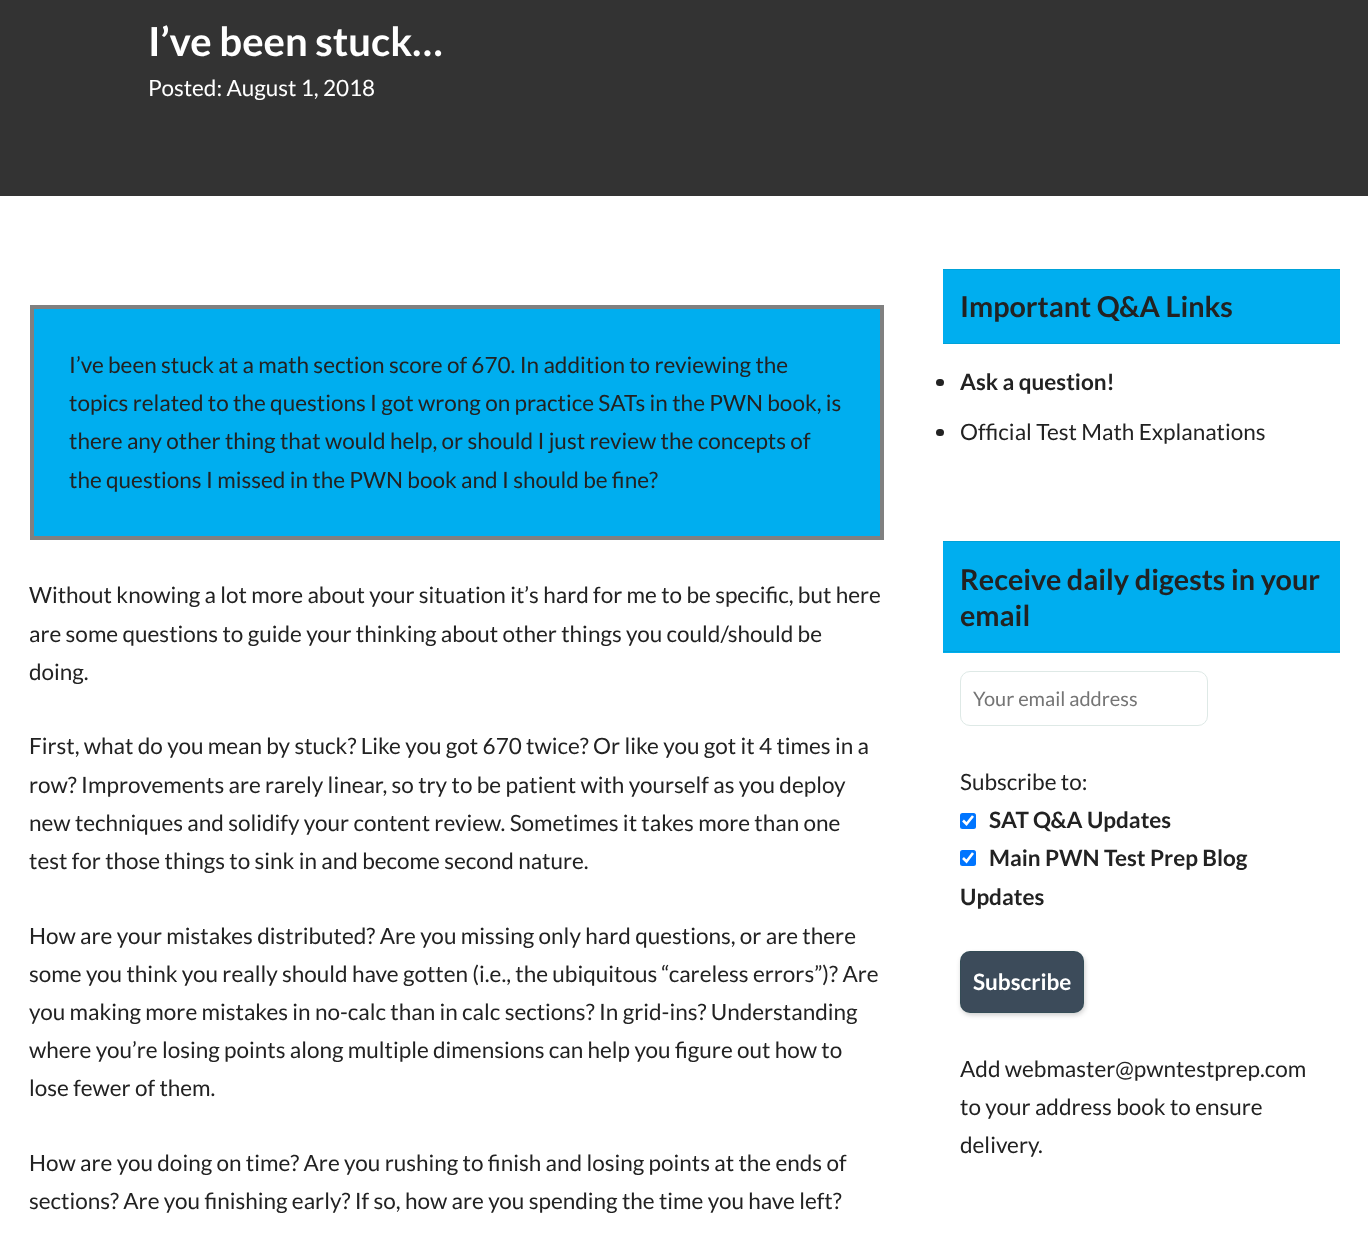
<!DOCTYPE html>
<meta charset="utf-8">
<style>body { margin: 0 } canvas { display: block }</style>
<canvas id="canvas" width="1368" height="1247"></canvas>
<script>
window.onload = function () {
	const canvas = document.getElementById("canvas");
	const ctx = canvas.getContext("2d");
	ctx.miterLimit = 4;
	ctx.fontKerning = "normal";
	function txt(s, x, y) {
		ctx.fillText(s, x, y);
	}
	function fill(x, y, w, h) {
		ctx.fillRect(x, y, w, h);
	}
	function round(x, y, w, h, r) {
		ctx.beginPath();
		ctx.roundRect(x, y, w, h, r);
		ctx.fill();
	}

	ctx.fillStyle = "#FFFFFF";
	fill(0, 0, 1368, 1247);
	ctx.fillStyle = "#333333";
	fill(0, 0, 1368, 196);
	ctx.fillStyle = "#00AEEF";
	ctx.beginPath();
	ctx.rect(32, 307, 850, 231);
	ctx.fill();
	ctx.strokeStyle = "#808080";
	ctx.lineWidth = 4;
	ctx.stroke();
	fill(943, 270, 397, 73);
	ctx.fillStyle = "#00A2D8";
	fill(943, 269, 397, 1);
	fill(943, 343, 397, 1);
	ctx.fillStyle = "#222222";
	round(936, 379, 8, 7, 3.5);
	round(936, 429, 8, 7, 3.5);
	ctx.fillStyle = "#00AEEF";
	fill(943, 542, 397, 111);
	ctx.fillStyle = "#00A2D8";
	fill(943, 541, 397, 1);
	fill(943, 651, 397, 1);
	ctx.beginPath();
	ctx.roundRect(960.5, 671.5, 247, 54, 9.5);
	ctx.strokeStyle = "#DEE9E6";
	ctx.lineWidth = 1;
	ctx.stroke();
	ctx.fillStyle = "#0075FF";
	round(960, 813, 16, 16, 2.5);
	ctx.beginPath();
	ctx.moveTo(963, 820.5);
	ctx.lineTo(966.5, 824);
	ctx.lineTo(973, 816);
	ctx.strokeStyle = "#FFFFFF";
	ctx.lineWidth = 2.6;
	ctx.stroke();
	round(960, 850, 16, 16, 2.5);
	ctx.beginPath();
	ctx.moveTo(963, 858);
	ctx.lineTo(966.5, 861.5);
	ctx.lineTo(973, 853);
	ctx.stroke();
	ctx.fillStyle = "rgba(0, 0, 0, 0.2)";
	ctx.filter = "blur(2.5px)";
	ctx.beginPath();
	ctx.roundRect(961, 954, 124, 61, 10);
	ctx.fill();
	ctx.filter = "none";
	ctx.fillStyle = "#3C4B5A";
	round(960, 951, 124, 62, 10);
	ctx.beginPath();
	ctx.roundRect(960.5, 951.5, 123, 61, 9.5);
	ctx.strokeStyle = "rgba(3, 84, 63, 0.13)";
	ctx.lineWidth = 1;
	ctx.stroke();
	ctx.font = "bold 40px Lato";
	ctx.fillStyle = "#FFFFFF";
	txt("I’ve been stuck…", 148, 56);
	ctx.font = "22.5px Lato";
	txt("Posted: August 1, 2018", 148, 96);
	ctx.fillStyle = "#222222";
	txt("I’ve been stuck at a math section score of 670. In addition to reviewing the", 69, 373);
	txt("topics related to the questions I got wrong on practice SATs in the PWN book, is", 69, 411);
	txt("there any other thing that would help, or should I just review the concepts of", 69, 449);
	txt("the questions I missed in the PWN book and I should be fine?", 69, 488);
	txt("Without knowing a lot more about your situation it’s hard for me to be specific, but here", 29, 603);
	txt("are some questions to guide your thinking about other things you could/should be", 29, 642);
	txt("doing.", 29, 680);
	txt("First, what do you mean by stuck? Like you got 670 twice? Or like you got it 4 times in a", 29, 754);
	txt("row? Improvements are rarely linear, so try to be patient with yourself as you deploy", 29, 793);
	txt("new techniques and solidify your content review. Sometimes it takes more than one", 29, 831);
	txt("test for those things to sink in and become second nature.", 29, 869);
	txt("How are your mistakes distributed? Are you missing only hard questions, or are there", 29, 944);
	txt("some you think you really should have gotten (i.e., the ubiquitous “careless errors”)? Are", 29, 982);
	txt("you making more mistakes in no-calc than in calc sections? In grid-ins? Understanding", 29, 1020);
	txt("where you’re losing points along multiple dimensions can help you figure out how to", 29, 1058);
	txt("lose fewer of them.", 29, 1096);
	txt("How are you doing on time? Are you rushing to finish and losing points at the ends of", 29, 1171);
	txt("sections? Are you finishing early? If so, how are you spending the time you have left?", 29, 1209);
	ctx.font = "bold 28.75px Lato";
	txt("Important Q&A Links", 960, 317);
	ctx.font = "bold 22.5px Lato";
	txt("Ask a question!", 960, 390);
	ctx.font = "22.5px Lato";
	txt("Official Test Math Explanations", 960, 440);
	ctx.font = "bold 28.75px Lato";
	txt("Receive daily digests in your", 960, 590);
	txt("email", 960, 626);
	ctx.font = "20px Lato";
	ctx.fillStyle = "#757575";
	txt("Your email address", 973, 706);
	ctx.font = "22.5px Lato";
	ctx.fillStyle = "#222222";
	txt("Subscribe to:", 960, 790);
	ctx.font = "bold 22.5px Lato";
	txt("SAT Q&A Updates", 989, 828);
	txt("Main PWN Test Prep Blog", 989, 866);
	txt("Updates", 960, 905);
	ctx.fillStyle = "#FFFFFF";
	txt("Subscribe", 973, 990);
	ctx.font = "22.5px Lato";
	ctx.fillStyle = "#222222";
	txt("Add webmaster@pwntestprep.com", 960, 1077);
	txt("to your address book to ensure", 960, 1115);
	txt("delivery.", 960, 1153);
};
</script>
